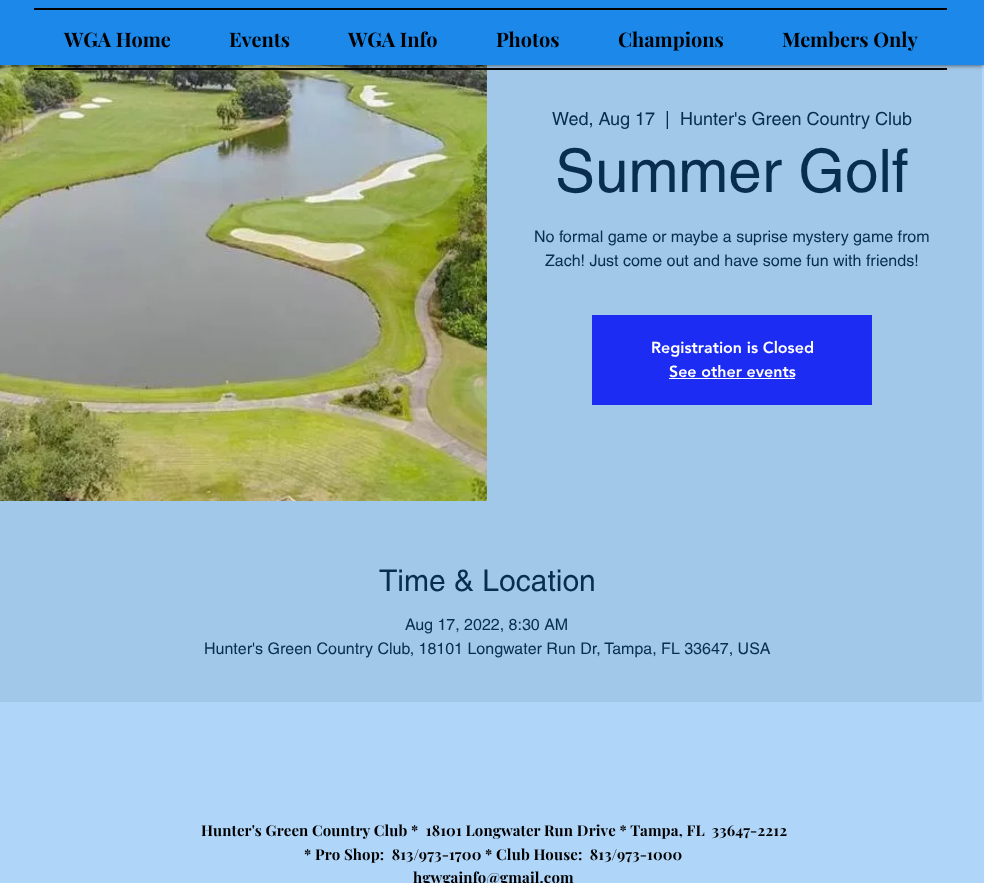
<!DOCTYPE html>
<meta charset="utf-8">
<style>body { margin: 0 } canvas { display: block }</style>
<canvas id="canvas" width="984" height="883"></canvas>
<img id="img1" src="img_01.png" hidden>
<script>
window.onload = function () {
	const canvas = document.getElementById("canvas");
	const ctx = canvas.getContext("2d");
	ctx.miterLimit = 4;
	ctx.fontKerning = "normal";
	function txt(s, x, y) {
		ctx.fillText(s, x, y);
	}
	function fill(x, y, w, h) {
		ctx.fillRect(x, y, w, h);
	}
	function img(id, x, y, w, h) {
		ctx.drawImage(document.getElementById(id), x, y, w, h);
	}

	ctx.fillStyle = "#AFD5F8";
	fill(0, 0, 984, 883);
	ctx.fillStyle = "#A1C7E9";
	fill(0, 65, 982, 637);
	img("img1", 0, 65, 487, 436);
	ctx.fillStyle = "rgba(0, 0, 0, 0.7)";
	ctx.filter = "blur(2.5px)";
	ctx.beginPath();
	ctx.rect(0, 0, 984, 65);
	ctx.fill();
	ctx.filter = "none";
	ctx.fillStyle = "#1B88EA";
	fill(0, 0, 984, 65);
	ctx.fillStyle = "#000000";
	fill(34, 8, 913, 2);
	fill(34, 68, 913, 2);
	ctx.fillStyle = "#1D2CF3";
	fill(592, 315, 280, 90);
	ctx.fillStyle = "#FFFFFF";
	fill(669, 378, 126, 1);
	ctx.font = "bold 20px Playfair Display";
	ctx.fillStyle = "#000000";
	txt("WGA Home", 64, 47);
	txt("Events", 229, 47);
	txt("WGA Info", 348, 47);
	txt("Photos", 496, 47);
	txt("Champions", 618, 47);
	txt("Members Only", 782, 47);
	ctx.font = "18px helvetica";
	ctx.fillStyle = "#092D4E";
	txt("Wed, Aug 17", 552, 125);
	txt("|", 665, 125);
	txt("Hunter's Green Country Club", 680, 125);
	ctx.font = "60px helvetica";
	txt("Summer Golf", 555, 192);
	ctx.font = "16px helvetica";
	txt("No formal game or maybe a suprise mystery game from", 534, 242);
	txt("Zach! Just come out and have some fun with friends!", 545, 266);
	ctx.font = "900 16px 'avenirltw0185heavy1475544'";
	ctx.fillStyle = "#FFFFFF";
	txt("Registration is Closed", 651, 353);
	txt("See other events", 669, 377);
	ctx.font = "30px helvetica";
	ctx.fillStyle = "#092D4E";
	txt("Time & Location", 379, 591);
	ctx.font = "16px helvetica";
	txt("Aug 17, 2022, 8:30 AM", 405, 630);
	txt("Hunter's Green Country Club, 18101 Longwater Run Dr, Tampa, FL 33647, USA", 204, 654);
	ctx.letterSpacing = "0.15px";
	ctx.font = "bold 15px Playfair Display";
	ctx.fillStyle = "#000000";
	txt("Hunter's Green Country Club *  18101 Longwater Run Drive * Tampa, FL  33647-2212", 201, 836);
	txt("* Pro Shop:  813/973-1700 * Club House:  813/973-1000", 304, 860);
	txt("hgwgainfo@gmail.com", 413, 883);
};
</script>
